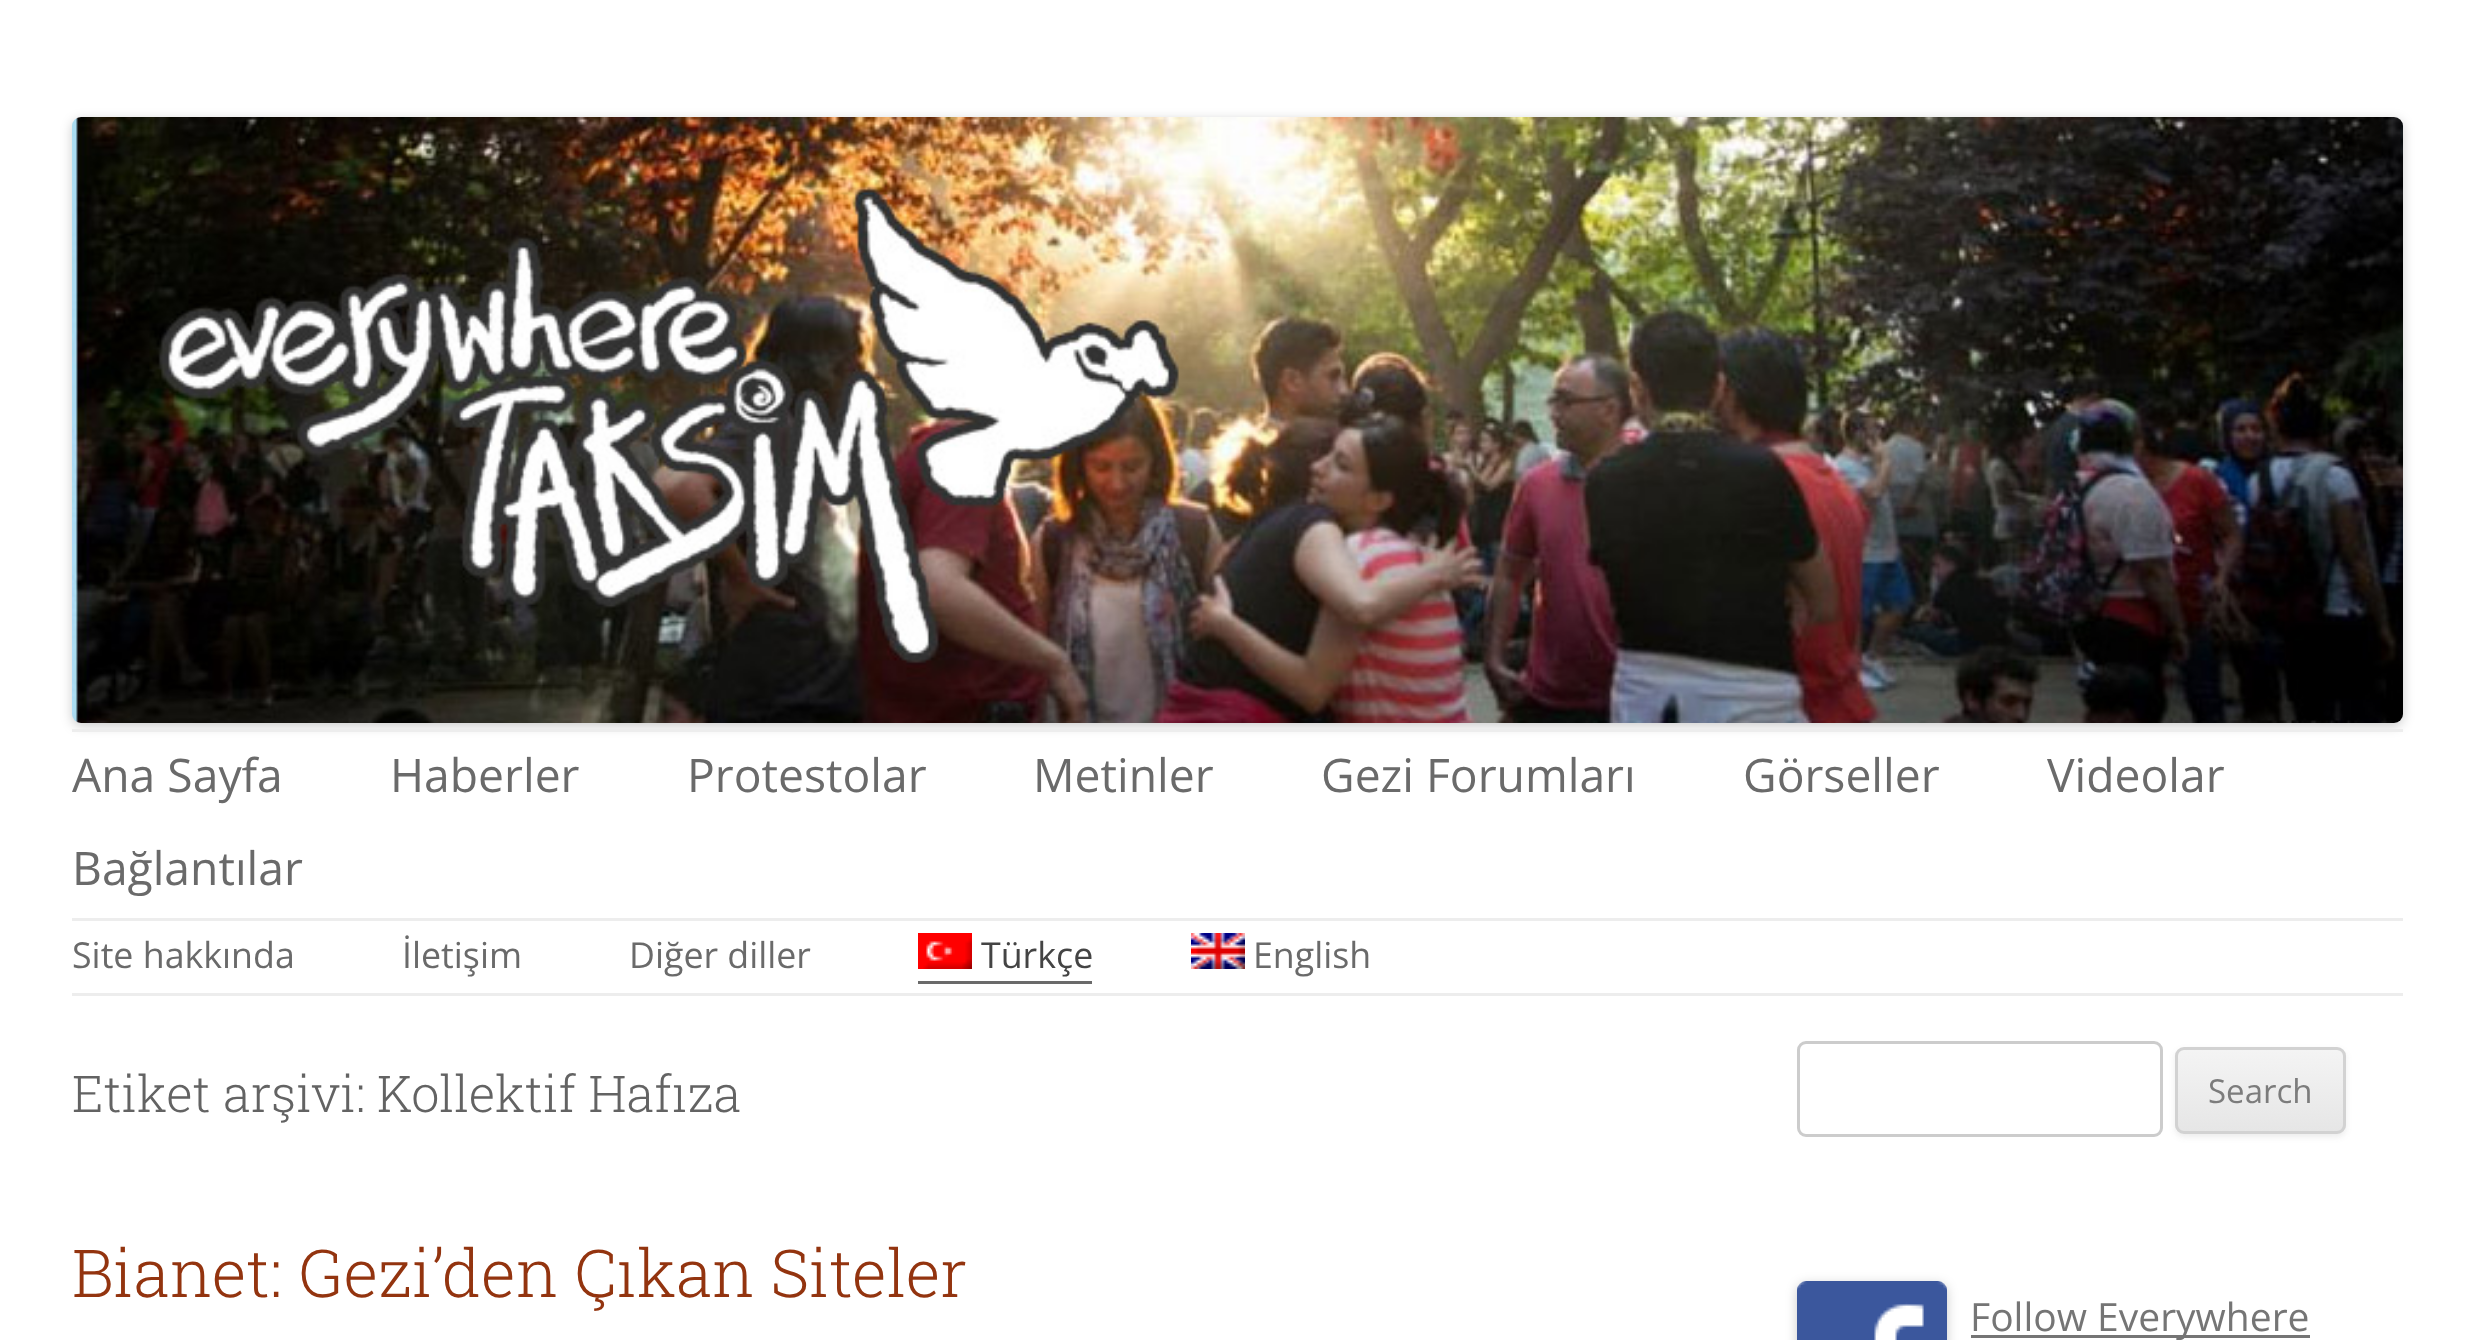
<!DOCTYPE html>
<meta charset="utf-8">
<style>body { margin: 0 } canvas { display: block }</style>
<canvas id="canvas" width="2473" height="1340"></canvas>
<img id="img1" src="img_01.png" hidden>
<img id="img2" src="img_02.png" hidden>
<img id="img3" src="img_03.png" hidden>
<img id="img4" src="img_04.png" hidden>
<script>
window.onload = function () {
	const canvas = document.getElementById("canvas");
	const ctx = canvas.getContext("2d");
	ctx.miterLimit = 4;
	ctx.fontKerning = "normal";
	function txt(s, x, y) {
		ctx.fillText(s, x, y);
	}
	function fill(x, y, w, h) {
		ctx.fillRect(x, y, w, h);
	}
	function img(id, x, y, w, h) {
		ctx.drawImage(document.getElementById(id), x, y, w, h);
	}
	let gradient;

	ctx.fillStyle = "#FFFFFF";
	fill(0, 0, 2473, 1340);
	ctx.fillStyle = "rgba(0, 0, 0, 0.2)";
	ctx.filter = "blur(6px)";
	ctx.beginPath();
	ctx.roundRect(72, 120, 2331, 606, 9);
	ctx.fill();
	ctx.filter = "none";
	img("img1", 72, 117, 2331, 606);
	ctx.fillStyle = "#EDEDED";
	fill(72, 729, 2331, 3);
	fill(72, 918, 2331, 3);
	fill(72, 993, 2331, 3);
	ctx.fillStyle = "#6A6A6A";
	fill(918, 981, 174, 3);
	img("img2", 918, 933, 54, 36);
	img("img3", 1191, 933, 54, 36);
	ctx.beginPath();
	ctx.roundRect(1798.5, 1042.5, 363, 93, 7.5);
	ctx.strokeStyle = "#CCCCCC";
	ctx.lineWidth = 3;
	ctx.stroke();
	ctx.fillStyle = "rgba(64, 64, 64, 0.1)";
	ctx.filter = "blur(3px)";
	ctx.beginPath();
	ctx.roundRect(2175, 1050, 171, 87, 9);
	ctx.fill();
	ctx.filter = "none";
	ctx.save();
	ctx.beginPath();
	ctx.roundRect(2175, 1047, 171, 87, 9);
	ctx.clip();
	gradient = ctx.createLinearGradient(2261, 1050, 2261, 1131);
	gradient.addColorStop(0, "#F4F4F4");
	gradient.addColorStop(1, "#E6E6E6");
	ctx.fillStyle = gradient;
	fill(2175, 1050, 171, 81);
	ctx.restore();
	ctx.beginPath();
	ctx.roundRect(2176.5, 1048.5, 168, 84, 7.5);
	ctx.strokeStyle = "#D2D2D2";
	ctx.stroke();
	ctx.save();
	ctx.beginPath();
	ctx.moveTo(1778, 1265);
	ctx.lineTo(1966, 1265);
	ctx.lineTo(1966, 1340);
	ctx.lineTo(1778, 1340);
	ctx.closePath();
	ctx.moveTo(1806, 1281);
	ctx.lineTo(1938, 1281);
	ctx.bezierCurveTo(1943, 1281, 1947, 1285, 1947, 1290);
	ctx.lineTo(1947, 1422);
	ctx.bezierCurveTo(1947, 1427, 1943, 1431, 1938, 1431);
	ctx.lineTo(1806, 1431);
	ctx.bezierCurveTo(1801, 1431, 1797, 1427, 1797, 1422);
	ctx.lineTo(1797, 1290);
	ctx.bezierCurveTo(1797, 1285, 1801, 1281, 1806, 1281);
	ctx.closePath();
	ctx.clip("evenodd");
	ctx.fillStyle = "rgba(0, 0, 0, 0.2)";
	ctx.filter = "blur(6px)";
	ctx.beginPath();
	ctx.roundRect(1797, 1284, 150, 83, 9);
	ctx.fill();
	ctx.filter = "none";
	ctx.restore();
	img("img4", 1797, 1281, 150, 59);
	ctx.fillStyle = "#757575";
	fill(1971, 1335, 339, 3);
	ctx.font = "46.25px Open Sans";
	ctx.fillStyle = "#6A6A6A";
	txt("Ana Sayfa", 72, 792);
	txt("Haberler", 390, 792);
	txt("Protestolar", 687, 792);
	txt("Metinler", 1033, 792);
	txt("Gezi Forumları", 1321, 792);
	txt("Görseller", 1743, 792);
	txt("Videolar", 2047, 792);
	txt("Bağlantılar", 72, 885);
	ctx.font = "35.75px Open Sans";
	txt("Site hakkında", 72, 968);
	txt("İletişim", 402, 968);
	txt("Diğer diller", 629, 968);
	ctx.fillStyle = "#444444";
	txt("Türkçe", 981, 968);
	ctx.fillStyle = "#6A6A6A";
	txt("English", 1253, 968);
	ctx.font = "300 50.5px Roboto Slab";
	ctx.fillStyle = "#636363";
	txt("Etiket arşivi:", 72, 1112);
	txt("Kollektif Hafıza", 377, 1112);
	ctx.font = "300 66px Roboto Slab";
	ctx.fillStyle = "#93340F";
	txt("Bianet: Gezi’den Çıkan Siteler", 72, 1297);
	ctx.font = "33px Open Sans";
	ctx.fillStyle = "#7C7C7C";
	txt("Search", 2208, 1103);
	ctx.font = "39px Open Sans";
	ctx.fillStyle = "#757575";
	txt("Follow Everywhere", 1970, 1331);
};
</script>
